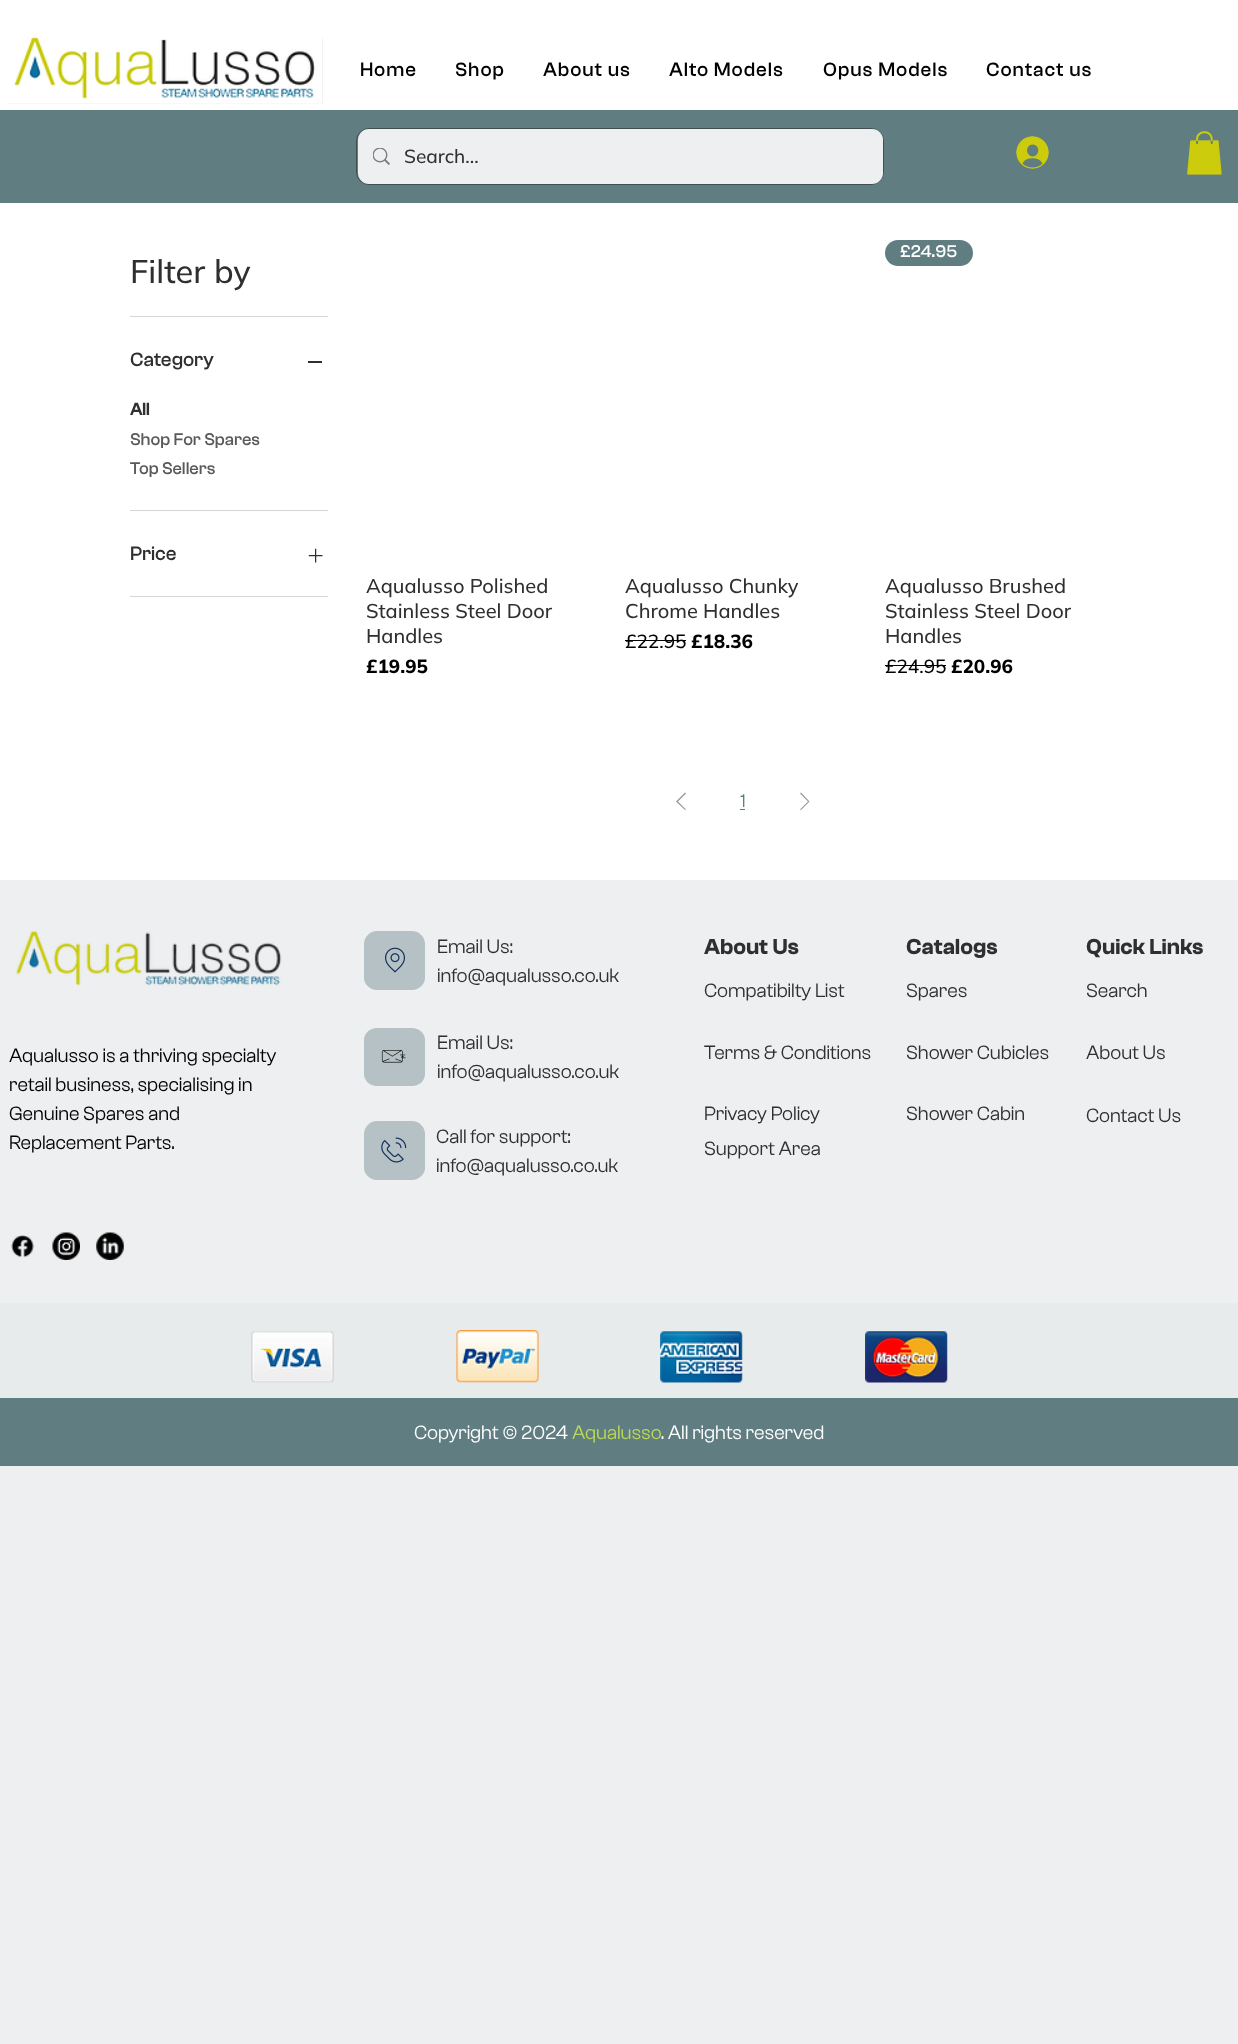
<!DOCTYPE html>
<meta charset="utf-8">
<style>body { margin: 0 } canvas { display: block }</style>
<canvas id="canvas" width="1238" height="2044"></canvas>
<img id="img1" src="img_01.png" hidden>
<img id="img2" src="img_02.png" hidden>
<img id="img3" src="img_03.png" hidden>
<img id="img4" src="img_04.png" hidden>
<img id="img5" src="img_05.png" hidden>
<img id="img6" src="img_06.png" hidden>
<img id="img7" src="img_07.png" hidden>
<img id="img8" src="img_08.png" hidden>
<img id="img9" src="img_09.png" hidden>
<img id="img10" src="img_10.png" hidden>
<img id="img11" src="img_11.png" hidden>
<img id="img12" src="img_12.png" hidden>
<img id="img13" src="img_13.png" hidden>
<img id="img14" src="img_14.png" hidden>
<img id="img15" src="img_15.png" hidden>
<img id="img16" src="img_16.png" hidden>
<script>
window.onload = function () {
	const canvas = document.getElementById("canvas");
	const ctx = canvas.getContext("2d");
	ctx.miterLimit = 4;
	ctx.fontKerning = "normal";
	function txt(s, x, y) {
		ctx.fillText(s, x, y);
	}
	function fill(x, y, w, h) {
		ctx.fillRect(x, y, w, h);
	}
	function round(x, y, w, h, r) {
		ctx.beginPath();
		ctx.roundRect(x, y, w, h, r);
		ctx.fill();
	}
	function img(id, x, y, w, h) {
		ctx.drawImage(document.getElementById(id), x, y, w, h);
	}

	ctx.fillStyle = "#EDEFF0";
	fill(0, 0, 1238, 2044);
	ctx.fillStyle = "#FFFFFF";
	fill(0, 0, 1238, 110);
	ctx.fillStyle = "#EDEFF0";
	fill(8, 38, 315, 66);
	img("img1", 8, 37, 315, 67);
	ctx.fillStyle = "#607D82";
	fill(0, 110, 1238, 93);
	ctx.beginPath();
	ctx.roundRect(356.5, 128.5, 527, 56, 12.5);
	ctx.strokeStyle = "#434E50";
	ctx.stroke();
	ctx.fillStyle = "#EDEFF0";
	round(358, 129, 525, 55, 11);
	img("img2", 373, 148, 17, 17);
	img("img3", 1016, 136, 33, 33);
	img("img4", 1187, 131, 35, 44);
	ctx.fillStyle = "#FFFFFF";
	fill(0, 203, 1238, 677);
	ctx.fillStyle = "#D5D5D5";
	fill(130, 316, 198, 1);
	fill(130, 510, 198, 1);
	ctx.fillStyle = "#2F2F2F";
	fill(308, 361, 14, 2);
	ctx.fillStyle = "#D5D5D5";
	fill(130, 596, 198, 1);
	img("img5", 308, 548, 15, 15);
	ctx.fillStyle = "#000000";
	fill(625, 640, 61, 1);
	ctx.fillStyle = "#607D82";
	round(885, 240, 88, 26, 13);
	ctx.fillStyle = "#000000";
	fill(885, 665, 61, 1);
	ctx.fillStyle = "#999999";
	ctx.beginPath();
	ctx.moveTo(685, 792.5);
	ctx.lineTo(686, 793.5);
	ctx.lineTo(678, 801.5);
	ctx.lineTo(686, 809.5);
	ctx.lineTo(685, 810);
	ctx.lineTo(676, 801.5);
	ctx.closePath();
	ctx.fill("evenodd");
	ctx.fillStyle = "#607D82";
	fill(740, 809, 5, 1);
	ctx.fillStyle = "#999999";
	ctx.beginPath();
	ctx.moveTo(801, 792.5);
	ctx.lineTo(809.5, 801.5);
	ctx.lineTo(801, 810);
	ctx.lineTo(800, 809.5);
	ctx.lineTo(808, 801.5);
	ctx.lineTo(800, 793.5);
	ctx.closePath();
	ctx.fill("evenodd");
	img("img6", 16, 931, 266, 55);
	ctx.fillStyle = "#B5C1C4";
	ctx.beginPath();
	ctx.moveTo(412, 990);
	ctx.lineTo(377, 990);
	ctx.bezierCurveTo(370, 990, 364, 984, 364, 978);
	ctx.lineTo(364, 944);
	ctx.bezierCurveTo(364, 937, 370, 931, 377, 931);
	ctx.lineTo(412, 931);
	ctx.bezierCurveTo(419, 931, 425, 937, 425, 944);
	ctx.lineTo(425, 978);
	ctx.bezierCurveTo(425, 984, 419, 990, 412, 990);
	ctx.closePath();
	ctx.fill();
	img("img7", 385, 947, 20, 26);
	ctx.beginPath();
	ctx.moveTo(412, 1086);
	ctx.lineTo(377, 1086);
	ctx.bezierCurveTo(370, 1086, 364, 1081, 364, 1074);
	ctx.lineTo(364, 1040);
	ctx.bezierCurveTo(364, 1033, 370, 1028, 377, 1028);
	ctx.lineTo(412, 1028);
	ctx.bezierCurveTo(419, 1028, 425, 1033, 425, 1040);
	ctx.lineTo(425, 1074);
	ctx.bezierCurveTo(425, 1081, 419, 1086, 412, 1086);
	ctx.closePath();
	ctx.fill();
	img("img8", 381, 1050, 25, 13);
	ctx.beginPath();
	ctx.moveTo(412, 1180);
	ctx.lineTo(377, 1180);
	ctx.bezierCurveTo(370, 1180, 364, 1174, 364, 1168);
	ctx.lineTo(364, 1134);
	ctx.bezierCurveTo(364, 1127, 370, 1121, 377, 1121);
	ctx.lineTo(412, 1121);
	ctx.bezierCurveTo(419, 1121, 425, 1127, 425, 1134);
	ctx.lineTo(425, 1168);
	ctx.bezierCurveTo(425, 1174, 419, 1180, 412, 1180);
	ctx.closePath();
	ctx.fill();
	img("img9", 381, 1137, 26, 26);
	img("img10", 11, 1235, 23, 23);
	img("img11", 52, 1232, 28, 28);
	img("img12", 96, 1232, 28, 28);
	ctx.fillStyle = "#E7EBEC";
	fill(0, 1303, 1238, 95);
	img("img13", 251, 1331, 83, 52);
	img("img14", 456, 1330, 83, 53);
	img("img15", 660, 1331, 83, 52);
	img("img16", 865, 1331, 83, 52);
	ctx.fillStyle = "#607D82";
	fill(0, 1398, 1238, 68);
	ctx.letterSpacing = "1px";
	ctx.font = "500 20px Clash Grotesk";
	ctx.fillStyle = "#000000";
	txt("Home", 360, 76);
	txt("Shop", 455, 76);
	txt("About us", 543, 76);
	txt("Alto Models", 669, 76);
	txt("Opus Models", 823, 76);
	txt("Contact us", 986, 76);
	ctx.letterSpacing = "0px";
	ctx.font = "500 19px Mulish";
	ctx.fillStyle = "#2F2F2F";
	txt("Search...", 404, 163);
	ctx.font = "500 32.5px Mulish";
	txt("Filter by", 130, 283);
	ctx.font = "500 20px Clash Grotesk";
	txt("Category", 130, 366);
	ctx.font = "bold 17.5px Clash Grotesk";
	txt("All", 130, 415);
	ctx.font = "500 17.5px Clash Grotesk";
	ctx.fillStyle = "#595959";
	txt("Shop For Spares", 130, 445);
	txt("Top Sellers", 130, 474);
	ctx.font = "500 20px Clash Grotesk";
	ctx.fillStyle = "#2F2F2F";
	txt("Price", 130, 560);
	ctx.font = "500 20px Mulish";
	txt("Aqualusso Polished", 366, 593);
	txt("Stainless Steel Door", 366, 618);
	txt("Handles", 366, 643);
	ctx.font = "800 19px Mulish";
	ctx.fillStyle = "#000000";
	txt("£19.95", 366, 673);
	ctx.font = "500 20px Mulish";
	ctx.fillStyle = "#2F2F2F";
	txt("Aqualusso Chunky", 625, 593);
	txt("Chrome Handles", 625, 618);
	ctx.font = "500 19px Mulish";
	ctx.fillStyle = "#000000";
	txt("£22.95", 625, 648);
	ctx.font = "800 19px Mulish";
	txt("£18.36", 691, 648);
	ctx.font = "500 17.5px Clash Grotesk";
	ctx.fillStyle = "#FFFFFF";
	txt("£24.95", 900, 257);
	ctx.font = "500 20px Mulish";
	ctx.fillStyle = "#2F2F2F";
	txt("Aqualusso Brushed", 885, 593);
	txt("Stainless Steel Door", 885, 618);
	txt("Handles", 885, 643);
	ctx.font = "500 19px Mulish";
	ctx.fillStyle = "#000000";
	txt("£24.95", 885, 673);
	ctx.font = "800 19px Mulish";
	txt("£20.96", 951, 673);
	ctx.font = "19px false";
	ctx.fillStyle = "#607D82";
	txt("1", 740, 807);
	ctx.font = "20px false";
	ctx.fillStyle = "#2F2F2F";
	txt("Email Us:", 437, 953);
	txt("info@aqualusso.co.uk", 437, 982);
	txt("Email Us:", 437, 1049);
	txt("info@aqualusso.co.uk", 437, 1078);
	txt("Call for support:", 436, 1143);
	txt("info@aqualusso.co.uk", 436, 1172);
	ctx.font = "600 22.5px Clash Grotesk";
	txt("About Us", 704, 954);
	txt("Catalogs", 906, 954);
	txt("Quick Links", 1086, 954);
	ctx.font = "20px false";
	txt("Compatibilty List", 704, 997);
	txt("Spares", 906, 997);
	txt("Search", 1086, 997);
	ctx.fillStyle = "#000000";
	txt("Aqualusso is a thriving specialty", 9, 1062);
	txt("retail business, specialising in", 9, 1091);
	txt("Genuine Spares and", 9, 1120);
	txt("Replacement Parts.", 9, 1149);
	ctx.fillStyle = "#2F2F2F";
	txt("Terms & Conditions", 704, 1059);
	txt("Shower Cubicles", 906, 1059);
	txt("About Us", 1086, 1059);
	txt("Privacy Policy", 704, 1120);
	txt("Shower Cabin", 906, 1120);
	txt("Contact Us", 1086, 1122);
	txt("Support Area", 704, 1155);
	ctx.fillStyle = "#FFFFFF";
	txt("Copyright © 2024", 414, 1439);
	ctx.fillStyle = "#BADA55";
	txt("Aqualusso", 572, 1439);
	ctx.fillStyle = "#FFFFFF";
	txt(". All rights reserved", 661, 1439);
};
</script>
